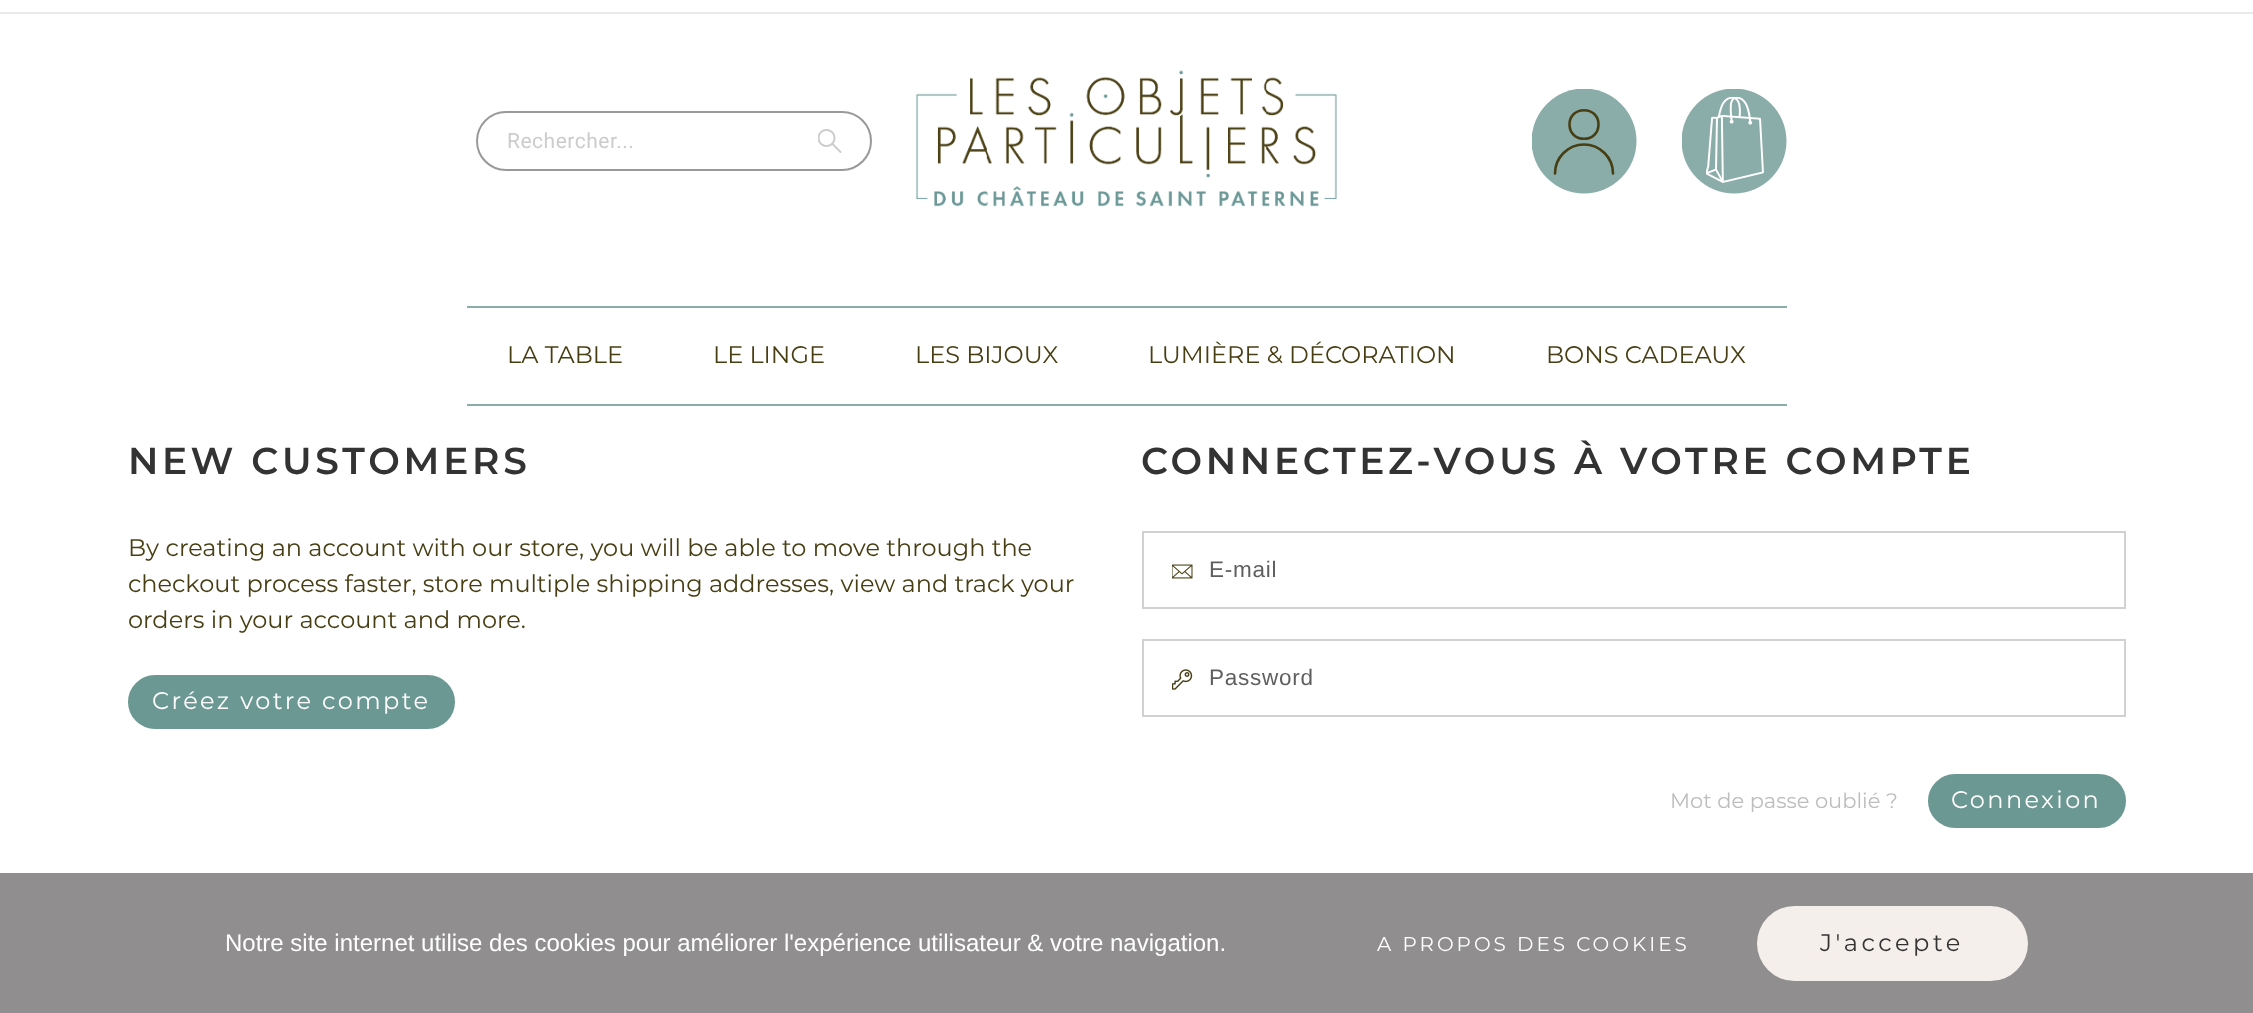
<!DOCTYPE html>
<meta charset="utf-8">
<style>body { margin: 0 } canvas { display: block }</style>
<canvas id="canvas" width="2253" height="1013"></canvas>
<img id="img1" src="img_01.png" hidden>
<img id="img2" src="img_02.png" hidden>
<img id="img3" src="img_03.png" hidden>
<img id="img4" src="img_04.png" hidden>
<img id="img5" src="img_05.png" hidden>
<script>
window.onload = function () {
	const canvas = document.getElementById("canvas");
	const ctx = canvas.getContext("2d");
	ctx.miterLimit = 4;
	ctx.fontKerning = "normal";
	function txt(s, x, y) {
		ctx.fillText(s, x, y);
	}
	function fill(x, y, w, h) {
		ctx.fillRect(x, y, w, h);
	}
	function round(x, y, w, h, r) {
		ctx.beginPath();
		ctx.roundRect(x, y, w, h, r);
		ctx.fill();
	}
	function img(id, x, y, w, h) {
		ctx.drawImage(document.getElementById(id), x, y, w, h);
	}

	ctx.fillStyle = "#FFFFFF";
	fill(0, 0, 2253, 1013);
	ctx.fillStyle = "#EAEAEA";
	fill(0, 12, 2253, 2);
	ctx.beginPath();
	ctx.roundRect(477, 112, 394, 58, 29);
	ctx.strokeStyle = "#999999";
	ctx.lineWidth = 2;
	ctx.stroke();
	img("img1", 818, 129, 24, 24);
	img("img2", 916, 70, 421, 137);
	ctx.save();
	ctx.beginPath();
	ctx.rect(1532, 89, 105, 105);
	ctx.clip();
	ctx.fillStyle = "#8AADA9";
	ctx.beginPath();
	ctx.arc(1584, 141, 52.5, 0, Math.PI * 2);
	ctx.fill();
	ctx.restore();
	ctx.beginPath();
	ctx.moveTo(1555, 173.5);
	ctx.bezierCurveTo(1555, 157.5, 1568, 144.5, 1584, 144.5);
	ctx.bezierCurveTo(1600, 144.5, 1613, 157.5, 1613, 173.5);
	ctx.strokeStyle = "#483E14";
	ctx.lineWidth = 2.6;
	ctx.lineCap = "round";
	ctx.stroke();
	ctx.beginPath();
	ctx.moveTo(1569.5, 124.5);
	ctx.bezierCurveTo(1569.5, 105.5, 1598.5, 105.5, 1598.5, 124.5);
	ctx.bezierCurveTo(1598.5, 143.5, 1569.5, 143.5, 1569.5, 124.5);
	ctx.closePath();
	ctx.lineCap = "butt";
	ctx.stroke();
	img("img3", 1682, 89, 105, 105);
	ctx.fillStyle = "#8AADA9";
	fill(467, 306, 1320, 2);
	fill(467, 404, 1320, 2);
	ctx.fillStyle = "#6C9893";
	ctx.beginPath();
	ctx.roundRect(129.5, 676.5, 324, 51, 25.5);
	ctx.fill();
	ctx.strokeStyle = "#6C9893";
	ctx.lineWidth = 3;
	ctx.stroke();
	ctx.strokeStyle = "#D1D1D1";
	ctx.lineWidth = 2;
	ctx.strokeRect(1143, 532, 982, 76);
	img("img4", 1172, 564, 21, 15);
	ctx.strokeRect(1143, 640, 982, 76);
	img("img5", 1172, 669, 21, 21);
	ctx.beginPath();
	ctx.roundRect(1929.5, 775.5, 195, 51, 25.5);
	ctx.fill();
	ctx.strokeStyle = "#6C9893";
	ctx.lineWidth = 3;
	ctx.stroke();
	ctx.fillStyle = "#908E8F";
	fill(0, 873, 2253, 140);
	ctx.fillStyle = "#F4EFEB";
	round(1757, 906, 271, 75, 37.5);
	ctx.letterSpacing = "0.5px";
	ctx.font = "21px Roboto";
	ctx.fillStyle = "#CCCCCC";
	txt("Rechercher...", 507, 148);
	ctx.letterSpacing = "0px";
	ctx.font = "24px Montserrat";
	ctx.fillStyle = "#483E14";
	txt("LA TABLE", 507, 363);
	txt("LE LINGE", 713, 363);
	txt("LES BIJOUX", 915, 363);
	txt("LUMIÈRE & DÉCORATION", 1148, 363);
	txt("BONS CADEAUX", 1546, 363);
	ctx.letterSpacing = "3.75px";
	ctx.font = "600 37.5px Montserrat";
	ctx.fillStyle = "#333333";
	txt("NEW CUSTOMERS", 128, 474);
	ctx.letterSpacing = "0px";
	ctx.font = "24px Montserrat";
	ctx.fillStyle = "#483E14";
	txt("By creating an account with our store, you will be able to move through the", 128, 556);
	txt("checkout process faster, store multiple shipping addresses, view and track your", 128, 592);
	txt("orders in your account and more.", 128, 628);
	ctx.letterSpacing = "2.4px";
	ctx.fillStyle = "#FFFFFF";
	txt("Créez votre compte", 152, 709);
	ctx.letterSpacing = "3.75px";
	ctx.font = "600 37.5px Montserrat";
	ctx.fillStyle = "#333333";
	txt("CONNECTEZ-VOUS À VOTRE COMPTE", 1141, 474);
	ctx.letterSpacing = "0.75px";
	ctx.font = "22.5px Liberation Sans";
	ctx.fillStyle = "#5F5F5F";
	txt("E-mail", 1209, 577);
	txt("Password", 1209, 685);
	ctx.letterSpacing = "0px";
	ctx.font = "21px Montserrat";
	ctx.fillStyle = "#BDBDBD";
	txt("Mot de passe oublié ?", 1670, 808);
	ctx.letterSpacing = "2.4px";
	ctx.font = "24px Montserrat";
	ctx.fillStyle = "#FFFFFF";
	txt("Connexion", 1951, 808);
	ctx.letterSpacing = "0px";
	ctx.font = "24px Liberation Sans";
	txt("Notre site internet utilise des cookies pour améliorer l'expérience utilisateur & votre navigation.", 225, 951);
	ctx.letterSpacing = "3px";
	ctx.font = "19.9px Montserrat";
	txt("A PROPOS DES COOKIES", 1377, 951);
	ctx.letterSpacing = "3.5px";
	ctx.font = "24px Montserrat";
	ctx.fillStyle = "#333333";
	txt("J'accepte", 1820, 951);
};
</script>
